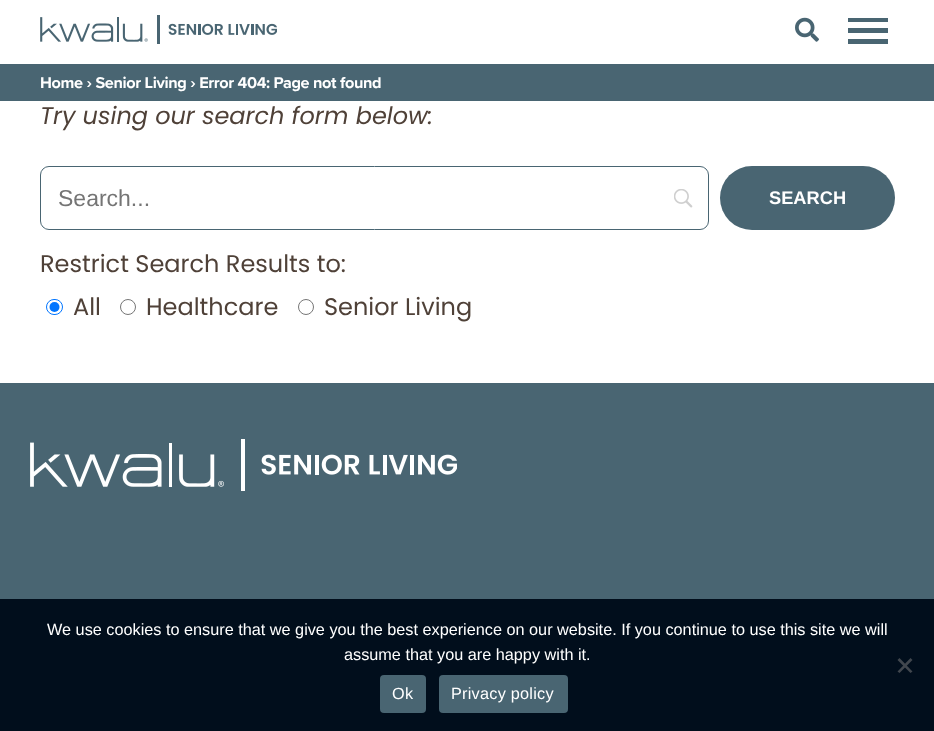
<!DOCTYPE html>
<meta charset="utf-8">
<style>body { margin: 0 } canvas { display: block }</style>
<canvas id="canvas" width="934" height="731"></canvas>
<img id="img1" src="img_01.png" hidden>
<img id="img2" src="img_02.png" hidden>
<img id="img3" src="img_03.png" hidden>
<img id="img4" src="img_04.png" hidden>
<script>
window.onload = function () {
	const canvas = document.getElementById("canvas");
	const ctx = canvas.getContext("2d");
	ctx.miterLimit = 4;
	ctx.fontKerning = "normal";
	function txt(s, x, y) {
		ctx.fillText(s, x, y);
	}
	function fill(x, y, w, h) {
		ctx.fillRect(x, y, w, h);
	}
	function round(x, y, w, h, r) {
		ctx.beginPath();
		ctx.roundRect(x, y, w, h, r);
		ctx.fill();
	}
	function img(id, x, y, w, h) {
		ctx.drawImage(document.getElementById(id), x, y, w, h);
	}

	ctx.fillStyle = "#FFFFFF";
	fill(0, 0, 934, 731);
	img("img1", 40, 15, 237, 29);
	img("img2", 795, 17, 24, 25);
	ctx.fillStyle = "#496572";
	ctx.beginPath();
	ctx.moveTo(848, 22);
	ctx.lineTo(848, 18);
	ctx.lineTo(888, 18);
	ctx.lineTo(888, 22);
	ctx.closePath();
	ctx.moveTo(848, 33);
	ctx.lineTo(848, 28);
	ctx.lineTo(888, 28);
	ctx.lineTo(888, 33);
	ctx.closePath();
	ctx.moveTo(848, 44);
	ctx.lineTo(848, 39);
	ctx.lineTo(888, 39);
	ctx.lineTo(888, 44);
	ctx.closePath();
	ctx.fill("evenodd");
	fill(0, 64, 934, 37);
	img("img3", 674, 189, 19, 19);
	ctx.beginPath();
	ctx.roundRect(40.5, 166.5, 668, 63, 8.5);
	ctx.strokeStyle = "#496572";
	ctx.stroke();
	round(720, 166, 175, 64, 32);
	ctx.beginPath();
	ctx.roundRect(46.5, 299.5, 16, 15, 7.5);
	ctx.strokeStyle = "#0075FF";
	ctx.stroke();
	ctx.fillStyle = "#0075FF";
	ctx.beginPath();
	ctx.arc(54.5, 307, 5, 0, Math.PI * 2);
	ctx.fill();
	ctx.beginPath();
	ctx.arc(128, 307, 7.5, 0, Math.PI * 2);
	ctx.strokeStyle = "#767676";
	ctx.stroke();
	ctx.beginPath();
	ctx.arc(306, 307, 7.5, 0, Math.PI * 2);
	ctx.stroke();
	ctx.fillStyle = "#496572";
	fill(0, 383, 934, 216);
	img("img4", 30, 439, 427, 52);
	ctx.fillStyle = "#010E1C";
	fill(0, 599, 934, 132);
	ctx.fillStyle = "#41474E";
	ctx.beginPath();
	ctx.moveTo(910.5, 658);
	ctx.lineTo(912.5, 660);
	ctx.lineTo(899.5, 673);
	ctx.lineTo(897.5, 671.5);
	ctx.closePath();
	ctx.fill();
	ctx.beginPath();
	ctx.moveTo(897.5, 660);
	ctx.lineTo(899.5, 658);
	ctx.lineTo(912.5, 671.5);
	ctx.lineTo(910.5, 673);
	ctx.closePath();
	ctx.fill();
	ctx.fillStyle = "#496572";
	round(380, 675, 46, 38, 4);
	round(439, 675, 129, 38, 4);
	ctx.letterSpacing = "-0.35px";
	ctx.font = "bold 16.25px Proxima Nova";
	ctx.fillStyle = "#FFFFFF";
	txt("Home › Senior Living › Error 404: Page not found", 40, 88);
	ctx.letterSpacing = "0px";
	ctx.font = "italic 24px Poppins";
	ctx.fillStyle = "#4F4138";
	txt("Try using our search form below:", 40, 124);
	ctx.font = "23px Liberation Sans";
	ctx.fillStyle = "#757575";
	txt("Search...", 58, 206);
	ctx.font = "bold 18.25px Liberation Sans";
	ctx.fillStyle = "#FFFFFF";
	txt("SEARCH", 769, 204);
	ctx.font = "24px Poppins";
	ctx.fillStyle = "#4F4138";
	txt("Restrict Search Results to:", 40, 272);
	txt("All", 73, 315);
	txt("Healthcare", 146, 315);
	txt("Senior Living", 324, 315);
	ctx.font = "16.25px Liberation Sans";
	ctx.fillStyle = "#FFFFFF";
	txt("We use cookies to ensure that we give you the best experience on our website. If you continue to use this site we will", 47, 635);
	txt("assume that you are happy with it.", 344, 660);
	ctx.letterSpacing = "0.25px";
	txt("Ok", 392, 699);
	txt("Privacy policy", 451, 699);
};
</script>
